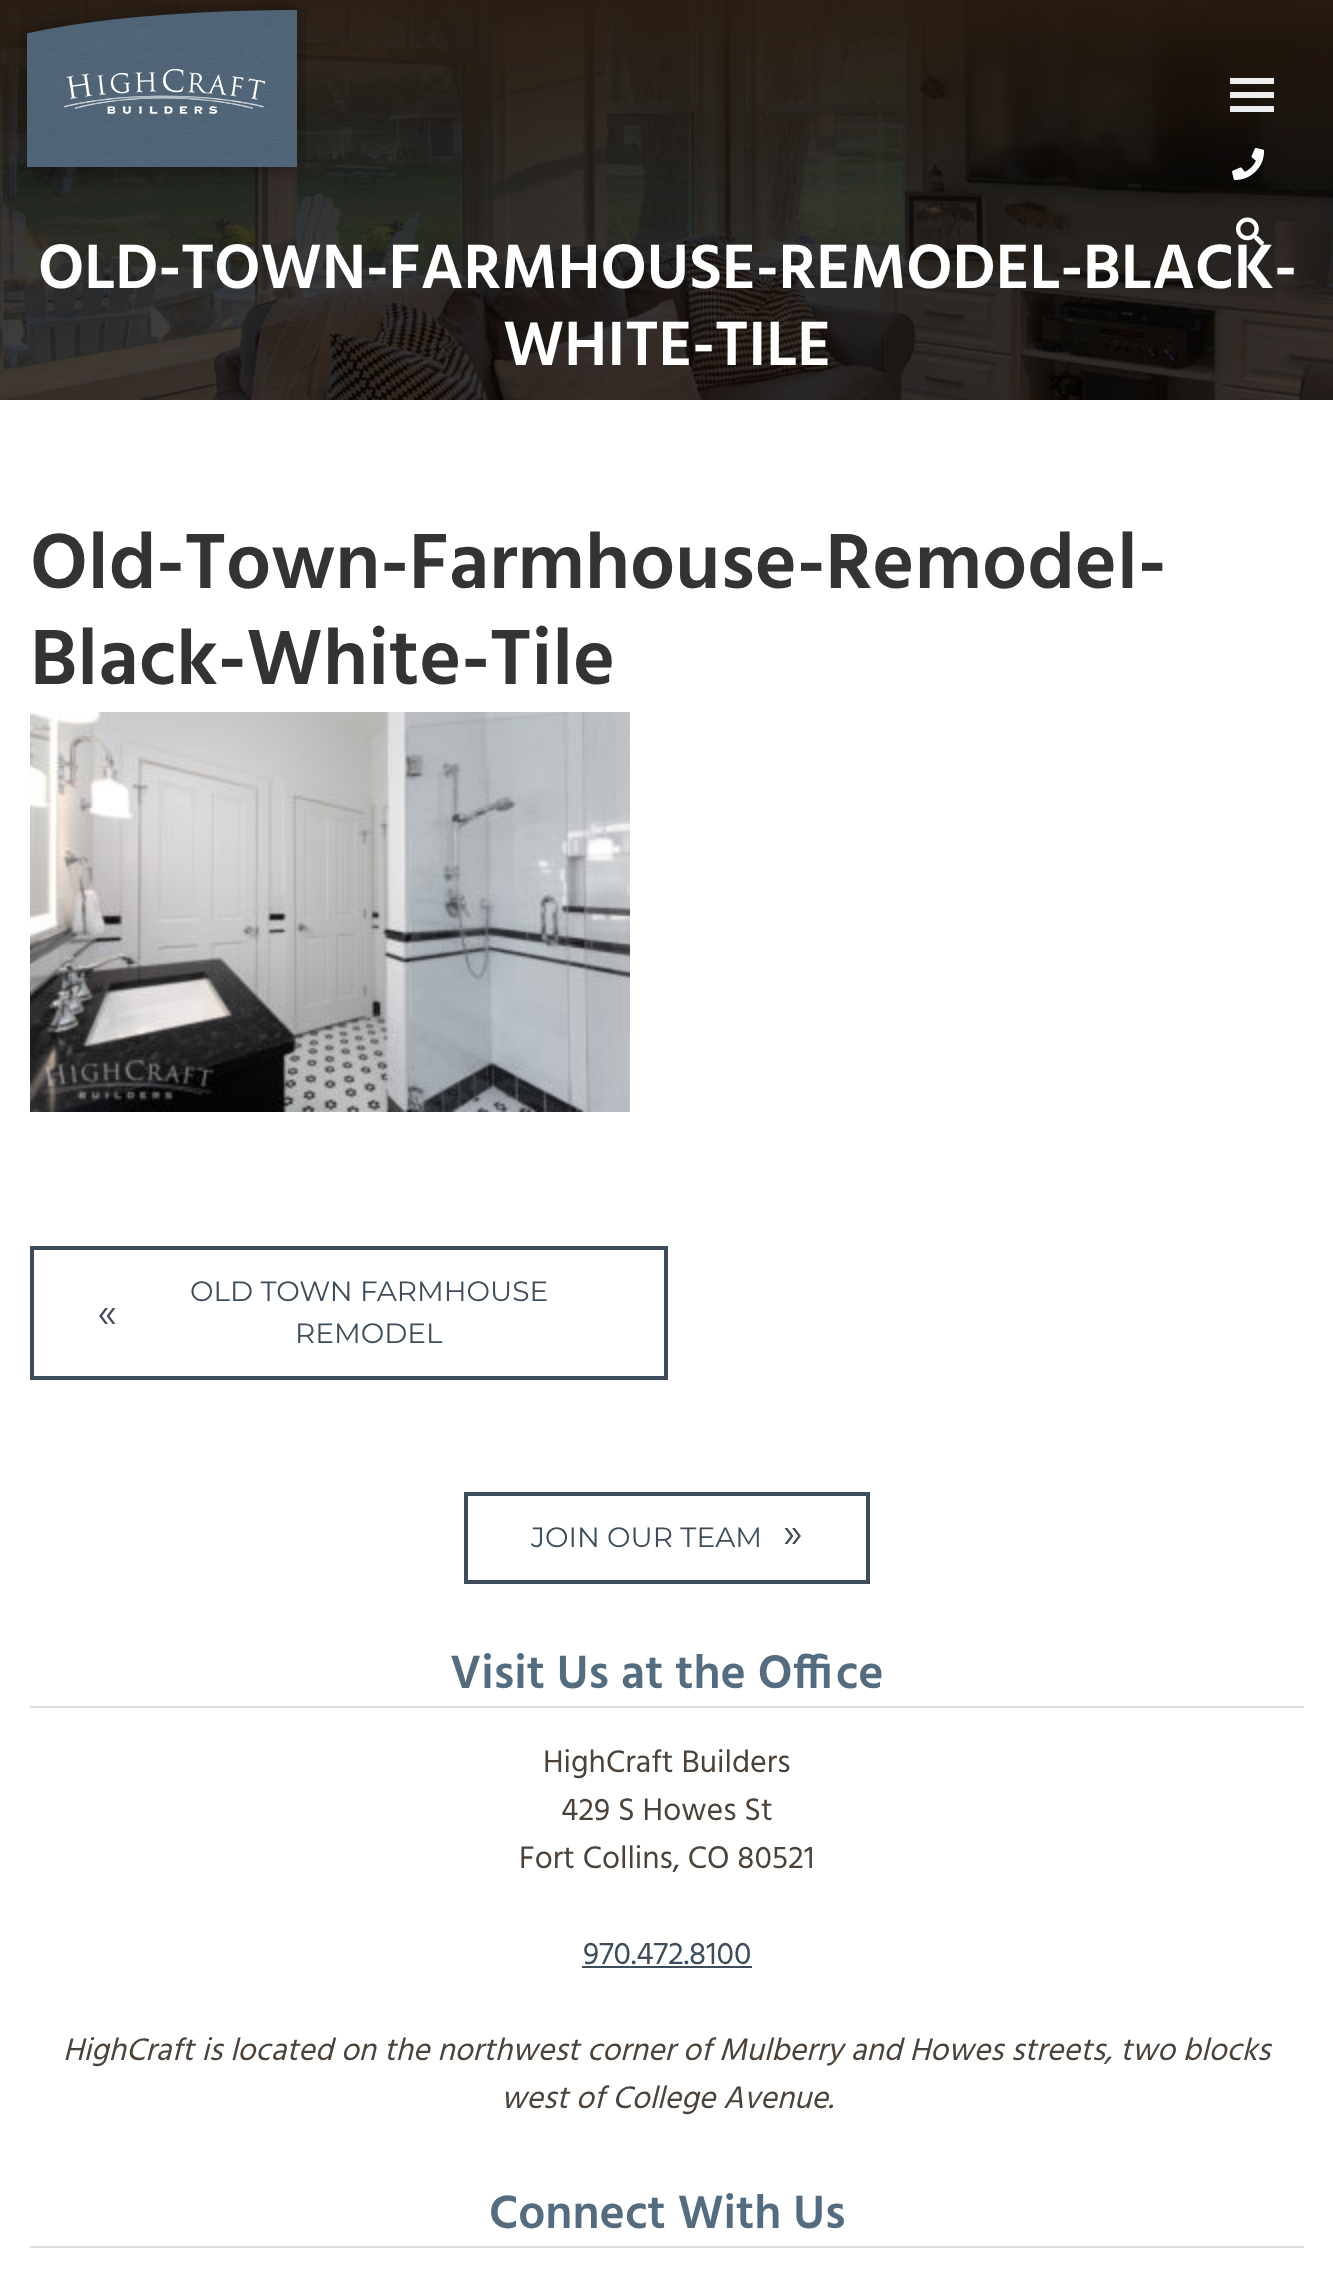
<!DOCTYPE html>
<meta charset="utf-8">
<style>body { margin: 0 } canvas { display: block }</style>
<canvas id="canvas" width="1333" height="2276"></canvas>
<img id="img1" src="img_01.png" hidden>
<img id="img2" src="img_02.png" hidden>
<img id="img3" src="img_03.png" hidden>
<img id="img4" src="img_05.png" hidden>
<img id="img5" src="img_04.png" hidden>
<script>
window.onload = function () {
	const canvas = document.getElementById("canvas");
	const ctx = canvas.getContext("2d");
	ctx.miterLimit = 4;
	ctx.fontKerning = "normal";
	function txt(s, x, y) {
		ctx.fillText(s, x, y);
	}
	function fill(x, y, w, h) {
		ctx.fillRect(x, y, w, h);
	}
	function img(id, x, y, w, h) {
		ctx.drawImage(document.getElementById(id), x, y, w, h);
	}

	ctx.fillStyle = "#FFFFFF";
	fill(0, 0, 1333, 2276);
	img("img1", 0, 0, 1333, 400);
	img("img2", 18, 2, 288, 175);
	ctx.fillStyle = "#EEEEEE";
	fill(1230, 92, 44, 6);
	fill(1230, 78, 44, 6);
	fill(1230, 106, 44, 6);
	img("img3", 1232, 148, 33, 32);
	img("img4", 30, 712, 600, 400);
	ctx.strokeStyle = "#3D4D5B";
	ctx.lineWidth = 4;
	ctx.strokeRect(32, 1248, 634, 130);
	ctx.strokeRect(466, 1494, 402, 88);
	ctx.fillStyle = "#DDDDDD";
	fill(30, 1706, 1274, 2);
	ctx.fillStyle = "#3D4D5B";
	fill(582, 1966, 170, 2);
	ctx.fillStyle = "#DDDDDD";
	fill(30, 2246, 1274, 2);
	ctx.font = "600 64px Hind";
	ctx.fillStyle = "#FFFFFF";
	txt("OLD-TOWN-FARMHOUSE-REMODEL-BLACK-", 38, 288);
	img("img5", 1236, 217, 28, 29);
	txt("WHITE-TILE", 503, 365);
	ctx.font = "600 80px Hind";
	ctx.fillStyle = "#333333";
	txt("Old-Town-Farmhouse-Remodel-", 30, 588);
	txt("Black-White-Tile", 30, 684);
	ctx.font = "100 28px Montserrat";
	ctx.fillStyle = "#3D4D5B";
	txt("OLD TOWN FARMHOUSE", 190, 1301);
	ctx.font = "100 42px Montserrat";
	txt("«", 97, 1327);
	ctx.font = "100 28px Montserrat";
	txt("REMODEL", 295, 1343);
	txt("JOIN OUR TEAM", 531, 1547);
	ctx.font = "100 42px Montserrat";
	txt("»", 783, 1547);
	ctx.font = "600 48px Hind";
	ctx.fillStyle = "#546C7F";
	txt("Visit Us at the Office", 450, 1688);
	ctx.font = "32px Hind";
	ctx.fillStyle = "#4D4239";
	txt("HighCraft Builders", 543, 1772);
	txt("429 S Howes St", 561, 1820);
	txt("Fort Collins, CO 80521", 519, 1868);
	ctx.fillStyle = "#3D4D5B";
	txt("970.472.8100", 583, 1964);
	ctx.font = "italic 32px Hind";
	ctx.fillStyle = "#4D4239";
	txt("HighCraft is located on the northwest corner of Mulberry and Howes streets, two blocks", 63, 2060);
	txt("west of College Avenue.", 501, 2108);
	ctx.font = "600 48px Hind";
	ctx.fillStyle = "#546C7F";
	txt("Connect With Us", 489, 2228);
};
</script>
